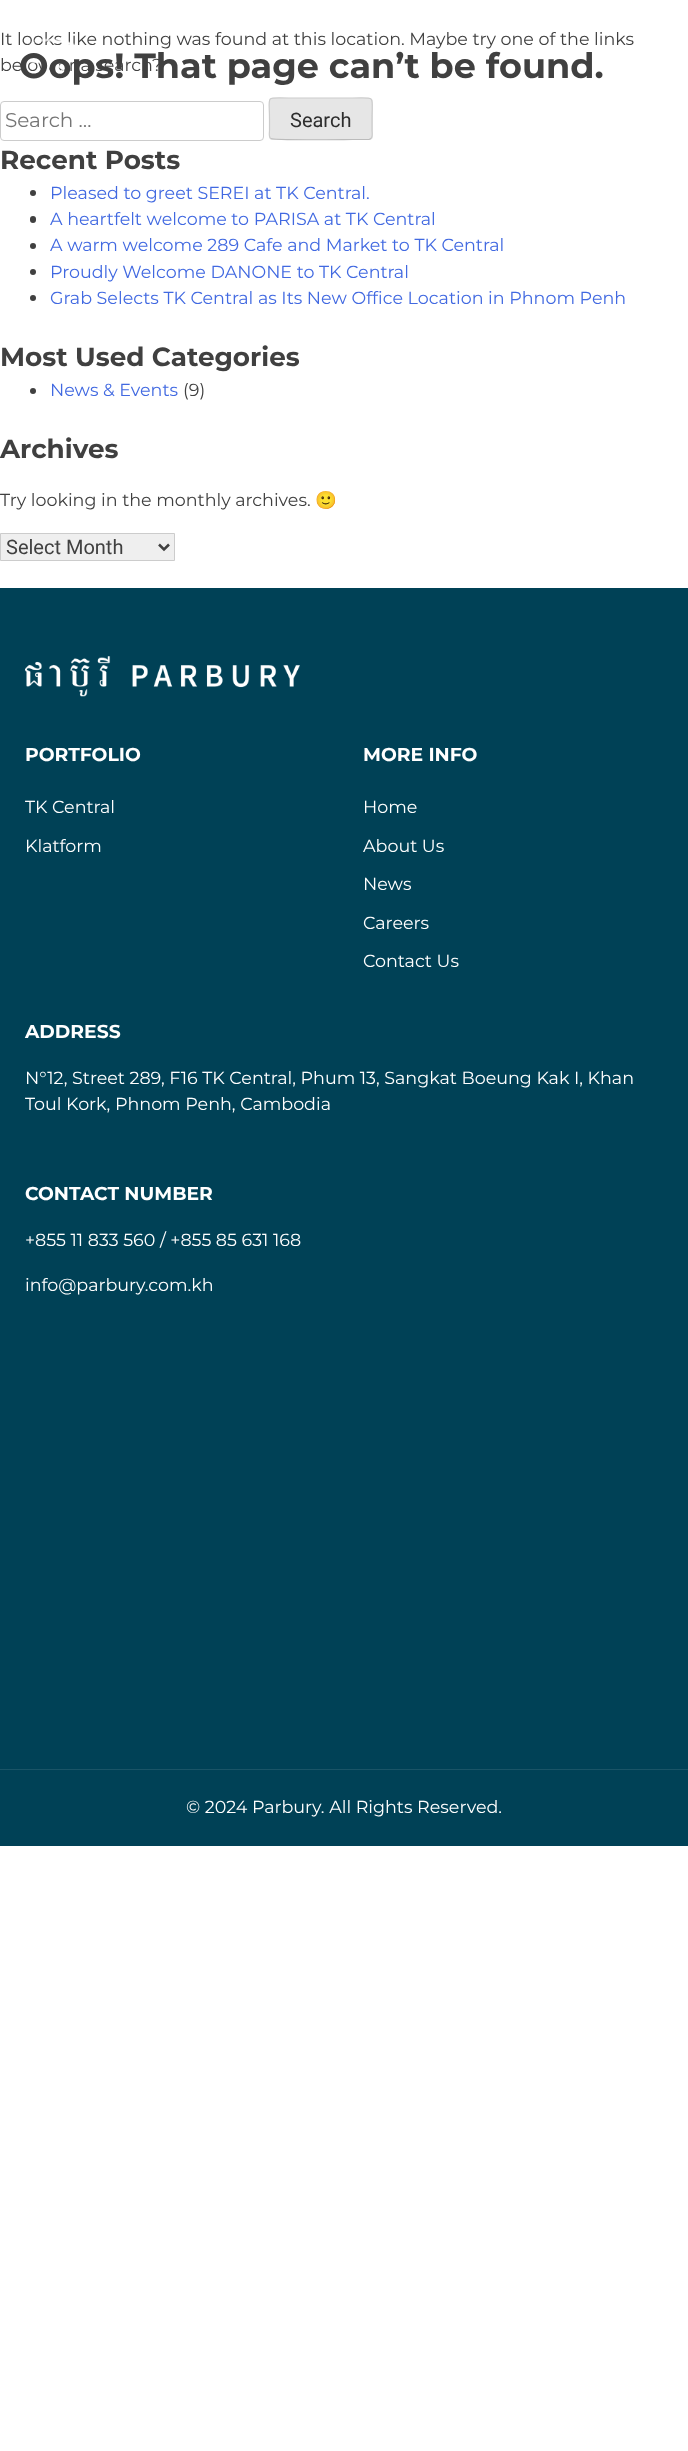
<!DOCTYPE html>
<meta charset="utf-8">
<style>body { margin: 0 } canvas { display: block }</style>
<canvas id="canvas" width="688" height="2451"></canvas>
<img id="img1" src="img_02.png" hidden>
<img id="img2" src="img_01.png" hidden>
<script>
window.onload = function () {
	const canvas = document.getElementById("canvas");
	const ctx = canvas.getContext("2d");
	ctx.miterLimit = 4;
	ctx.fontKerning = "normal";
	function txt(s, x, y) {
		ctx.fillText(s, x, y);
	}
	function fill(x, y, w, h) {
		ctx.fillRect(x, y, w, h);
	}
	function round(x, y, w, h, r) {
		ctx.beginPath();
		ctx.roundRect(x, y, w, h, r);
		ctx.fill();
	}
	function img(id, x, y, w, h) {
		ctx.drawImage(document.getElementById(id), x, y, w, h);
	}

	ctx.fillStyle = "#FFFFFF";
	fill(0, 0, 688, 2451);
	ctx.beginPath();
	ctx.roundRect(0.5, 101.5, 263, 39, 3.5);
	ctx.strokeStyle = "#CCCCCC";
	ctx.stroke();
	ctx.fillStyle = "#E6E6E6";
	round(269, 98, 104, 42, 4);
	ctx.beginPath();
	ctx.moveTo(371, 138.5);
	ctx.lineTo(369, 139.5);
	ctx.lineTo(352.5, 139.5);
	ctx.bezierCurveTo(344, 139.5, 272.5, 140.5, 270.5, 138.5);
	ctx.strokeStyle = "#BBBBBB";
	ctx.lineWidth = 1.2;
	ctx.stroke();
	ctx.beginPath();
	ctx.moveTo(270.5, 138.5);
	ctx.bezierCurveTo(268.5, 136.5, 269.5, 132, 269.5, 130.5);
	ctx.lineTo(269.5, 119);
	ctx.bezierCurveTo(269.5, 94.5, 264.5, 98, 288.5, 98);
	ctx.lineTo(352.5, 98);
	ctx.bezierCurveTo(376.5, 98, 372, 94.5, 372, 119);
	ctx.lineTo(372, 130.5);
	ctx.bezierCurveTo(372, 132, 373, 136.5, 371, 138.5);
	ctx.strokeStyle = "#CCCCCC";
	ctx.stroke();
	ctx.fillStyle = "#404040";
	ctx.beginPath();
	ctx.arc(33, 193, 3, 0, Math.PI * 2);
	ctx.fill();
	round(30, 216, 6, 7, 3);
	ctx.beginPath();
	ctx.arc(33, 246, 3, 0, Math.PI * 2);
	ctx.fill();
	ctx.beginPath();
	ctx.arc(33, 272, 3, 0, Math.PI * 2);
	ctx.fill();
	ctx.beginPath();
	ctx.arc(33, 298, 3, 0, Math.PI * 2);
	ctx.fill();
	ctx.beginPath();
	ctx.arc(33, 391, 3, 0, Math.PI * 2);
	ctx.fill();
	ctx.fillStyle = "#EFEFEF";
	ctx.beginPath();
	ctx.rect(0.5, 533.5, 174, 27);
	ctx.fill();
	ctx.lineWidth = 1;
	ctx.stroke();
	ctx.beginPath();
	ctx.moveTo(159, 544.5);
	ctx.lineTo(164, 549.5);
	ctx.lineTo(169, 544.5);
	ctx.strokeStyle = "#404040";
	ctx.lineWidth = 2.5;
	ctx.stroke();
	ctx.fillStyle = "#004156";
	fill(0, 588, 688, 1258);
	img("img1", 25, 656, 275, 41);
	ctx.fillStyle = "#1A5467";
	fill(0, 1769, 688, 1);
	ctx.font = "17.5px Montserrat";
	ctx.fillStyle = "#404040";
	txt("It looks like nothing was found at this location. Maybe try one of the links", 0, 45);
	txt("below or a search?", 0, 71);
	ctx.font = "20px Montserrat";
	ctx.fillStyle = "#757575";
	txt("Search …", 5, 127);
	ctx.font = "20px Roboto";
	ctx.fillStyle = "#2E2E2E";
	txt("Search", 290, 127);
	ctx.font = "bold 26.25px Montserrat";
	ctx.fillStyle = "#404040";
	txt("Recent Posts", 0, 169);
	ctx.font = "17.5px Montserrat";
	ctx.fillStyle = "#4169E1";
	txt("Pleased to greet SEREI at TK Central.", 50, 199);
	txt("A heartfelt welcome to PARISA at TK Central", 50, 225);
	txt("A warm welcome 289 Cafe and Market to TK Central", 50, 251);
	txt("Proudly Welcome DANONE to TK Central", 50, 278);
	txt("Grab Selects TK Central as Its New Office Location in Phnom Penh", 50, 304);
	ctx.font = "bold 26.25px Montserrat";
	ctx.fillStyle = "#404040";
	txt("Most Used Categories", 0, 366);
	ctx.font = "17.5px Montserrat";
	ctx.fillStyle = "#4169E1";
	txt("News & Events", 50, 396);
	ctx.fillStyle = "#404040";
	txt("(9)", 183, 396);
	ctx.font = "bold 26.25px Montserrat";
	txt("Archives", 0, 458);
	ctx.font = "17.5px Montserrat";
	txt("Try looking in the monthly archives.", 0, 506);
	ctx.font = "17.5px Noto Color Emoji";
	txt("🙂", 315, 506);
	ctx.font = "20px Roboto";
	txt("Select Month", 6, 554);
	img("img2", 25, 38, 50, 34);
	ctx.font = "bold 35px Montserrat";
	txt("Oops! That page can’t be found.", 19, 78);
	ctx.font = "bold 18.75px Montserrat";
	ctx.fillStyle = "#FFFFFF";
	txt("PORTFOLIO", 25, 761);
	ctx.font = "17.5px Montserrat";
	txt("TK Central", 25, 813);
	txt("Klatform", 25, 852);
	ctx.font = "bold 18.75px Montserrat";
	txt("MORE INFO", 363, 761);
	ctx.font = "17.5px Montserrat";
	txt("Home", 363, 813);
	txt("About Us", 363, 852);
	txt("News", 363, 890);
	txt("Careers", 363, 929);
	txt("Contact Us", 363, 967);
	ctx.font = "bold 18.75px Montserrat";
	txt("ADDRESS", 25, 1038);
	ctx.font = "17.5px Montserrat";
	txt("N°12, Street 289, F16 TK Central, Phum 13, Sangkat Boeung Kak I, Khan", 25, 1084);
	txt("Toul Kork, Phnom Penh, Cambodia", 25, 1110);
	ctx.font = "bold 18.75px Montserrat";
	txt("CONTACT NUMBER", 25, 1200);
	ctx.font = "17.5px Montserrat";
	txt("+855 11 833 560 / +855 85 631 168", 25, 1246);
	txt("info@parbury.com.kh", 25, 1291);
	txt("© 2024 Parbury. All Rights Reserved.", 186, 1813);
};
</script>
